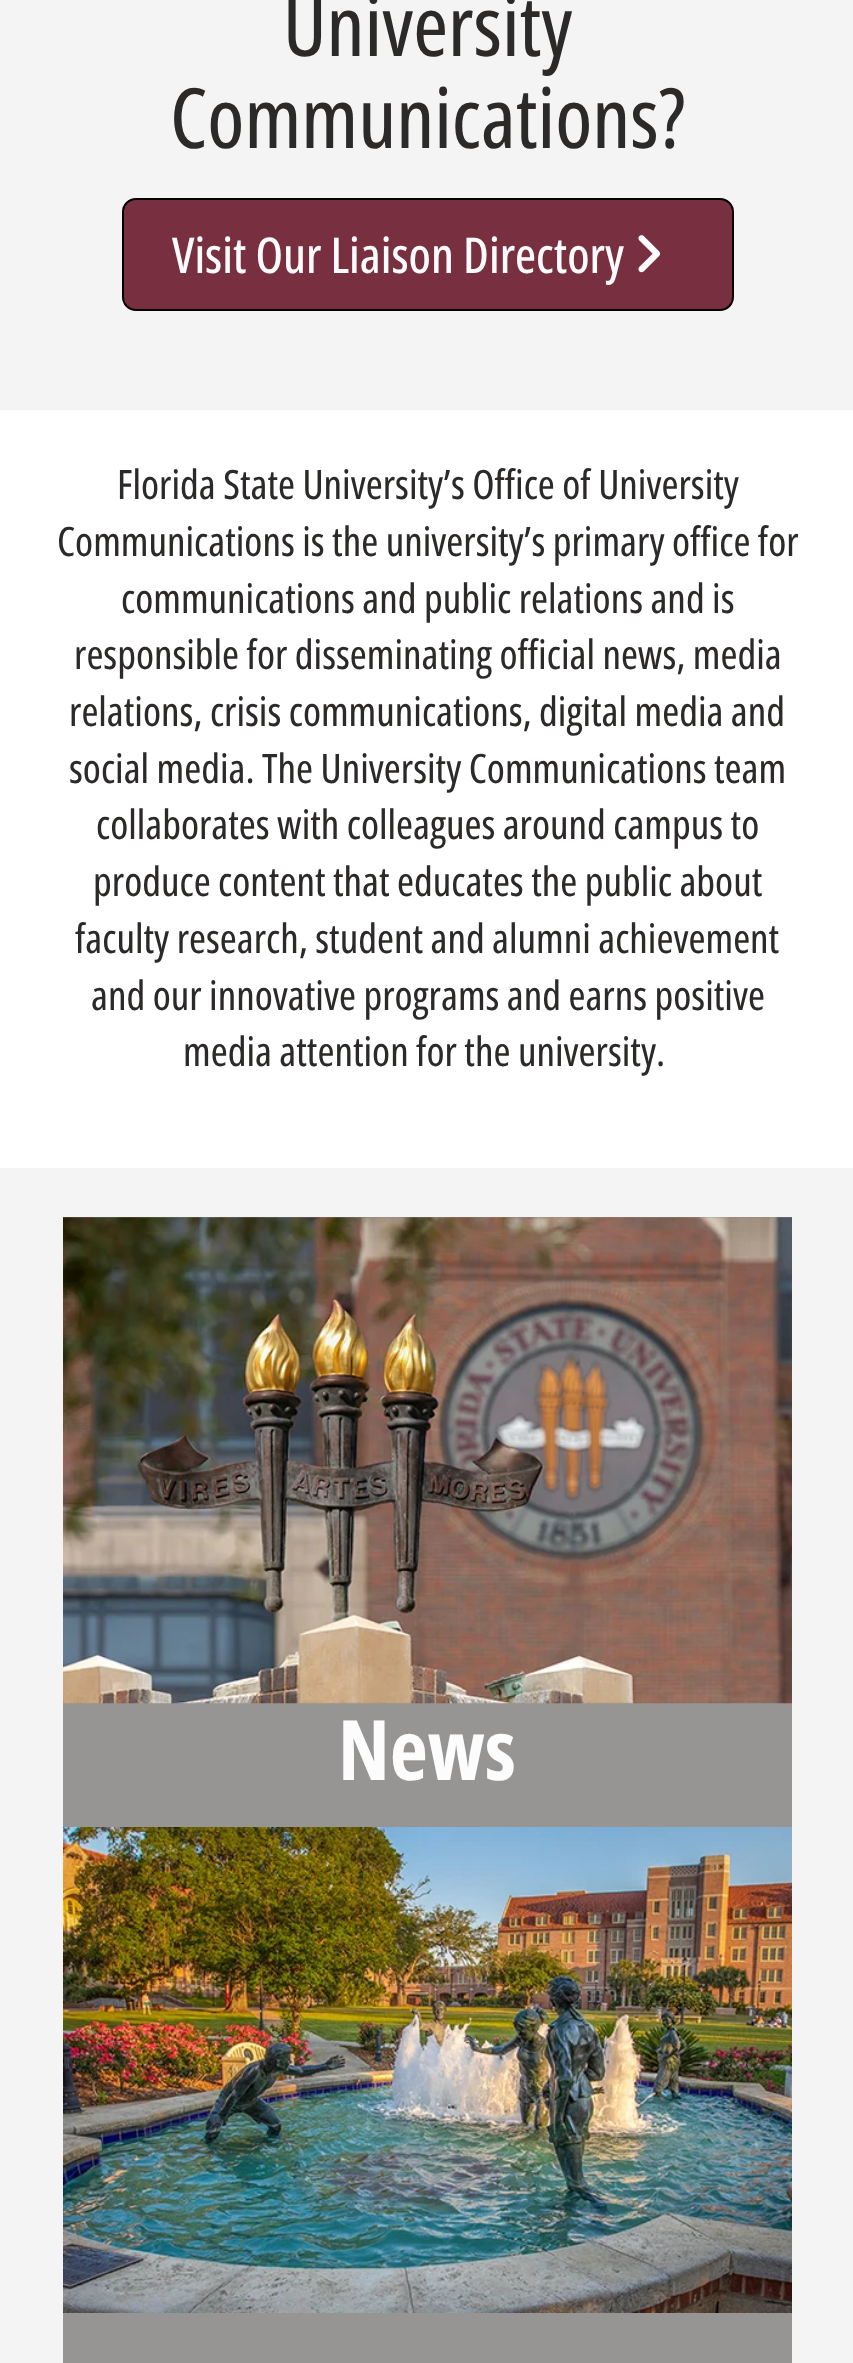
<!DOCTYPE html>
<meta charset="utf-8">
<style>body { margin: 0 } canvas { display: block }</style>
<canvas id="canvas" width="853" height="2363"></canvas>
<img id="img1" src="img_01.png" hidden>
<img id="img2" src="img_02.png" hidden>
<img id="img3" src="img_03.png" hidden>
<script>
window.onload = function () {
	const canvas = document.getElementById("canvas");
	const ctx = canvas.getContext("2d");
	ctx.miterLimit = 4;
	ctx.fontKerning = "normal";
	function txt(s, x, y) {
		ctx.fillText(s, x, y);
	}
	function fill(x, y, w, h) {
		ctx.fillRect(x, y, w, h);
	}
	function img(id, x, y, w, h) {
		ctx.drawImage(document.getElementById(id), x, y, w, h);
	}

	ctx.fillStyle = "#F4F4F4";
	fill(0, 0, 853, 2363);
	ctx.fillStyle = "#782F40";
	ctx.beginPath();
	ctx.roundRect(123, 199, 610, 111, 13);
	ctx.fill();
	ctx.strokeStyle = "#000000";
	ctx.lineWidth = 2;
	ctx.stroke();
	img("img1", 638, 235, 23, 38);
	ctx.fillStyle = "#FFFFFF";
	fill(0, 410, 853, 758);
	ctx.fillStyle = "#969594";
	fill(63, 1217, 729, 1146);
	img("img2", 63, 1217, 729, 487);
	img("img3", 63, 1827, 729, 486);
	ctx.font = "83.25px Open Sans";
	ctx.fillStyle = "#2C2A29";
	txt("University", 283, 56);
	txt("Communications?", 170, 148);
	ctx.font = "500 49.5px Open Sans";
	ctx.fillStyle = "#FDFCFC";
	txt("Visit Our Liaison Directory", 172, 273);
	ctx.font = "40.5px Open Sans";
	ctx.fillStyle = "#2C2A29";
	txt("Florida State University’s Office of University", 117, 499);
	txt("Communications is the university’s primary office for", 57, 556);
	txt("communications and public relations and is", 121, 613);
	txt("responsible for disseminating official news, media", 74, 669);
	txt("relations, crisis communications, digital media and", 69, 726);
	txt("social media. The University Communications team", 69, 783);
	txt("collaborates with colleagues around campus to", 96, 839);
	txt("produce content that educates the public about", 93, 896);
	txt("faculty research, student and alumni achievement", 75, 953);
	txt("and our innovative programs and earns positive", 91, 1010);
	txt("media attention for the university.", 183, 1066);
	ctx.font = "bold 83.25px Open Sans";
	ctx.fillStyle = "#FDFCFC";
	txt("News", 338, 1780);
};
</script>
